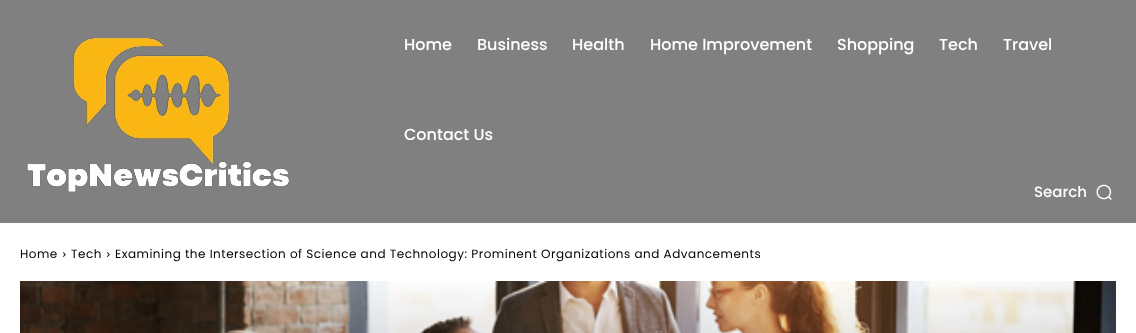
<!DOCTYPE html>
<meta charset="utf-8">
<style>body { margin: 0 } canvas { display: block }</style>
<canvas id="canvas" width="1136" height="333"></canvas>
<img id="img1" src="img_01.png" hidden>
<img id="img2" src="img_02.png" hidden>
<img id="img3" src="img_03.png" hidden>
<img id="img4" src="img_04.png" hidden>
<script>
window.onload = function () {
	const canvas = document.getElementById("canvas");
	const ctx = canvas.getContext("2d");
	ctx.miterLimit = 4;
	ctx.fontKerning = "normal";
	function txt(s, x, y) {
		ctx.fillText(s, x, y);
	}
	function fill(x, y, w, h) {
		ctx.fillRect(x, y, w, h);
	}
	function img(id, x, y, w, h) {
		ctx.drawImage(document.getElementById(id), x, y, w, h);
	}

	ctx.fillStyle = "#FFFFFF";
	fill(0, 0, 1136, 333);
	ctx.fillStyle = "#808080";
	fill(0, 0, 1136, 223);
	img("img1", 27, 38, 262, 154);
	img("img2", 1096, 184, 16, 16);
	img("img3", 63, 252, 3, 5);
	img("img3", 107, 252, 3, 5);
	img("img4", 20, 281, 1096, 52);
	ctx.font = "500 16px Poppins";
	ctx.fillStyle = "#FFFFFF";
	txt("Home", 404, 50);
	txt("Business", 477, 50);
	txt("Health", 572, 50);
	txt("Home Improvement", 650, 50);
	txt("Shopping", 837, 50);
	txt("Tech", 939, 50);
	txt("Travel", 1003, 50);
	txt("Contact Us", 404, 140);
	ctx.font = "500 15px Poppins";
	txt("Search", 1034, 197);
	ctx.letterSpacing = "0.5px";
	ctx.font = "12px Poppins";
	ctx.fillStyle = "#000000";
	txt("Home", 20, 258);
	txt("Tech", 71, 258);
	txt("Examining the Intersection of Science and Technology: Prominent Organizations and Advancements", 115, 258);
};
</script>
